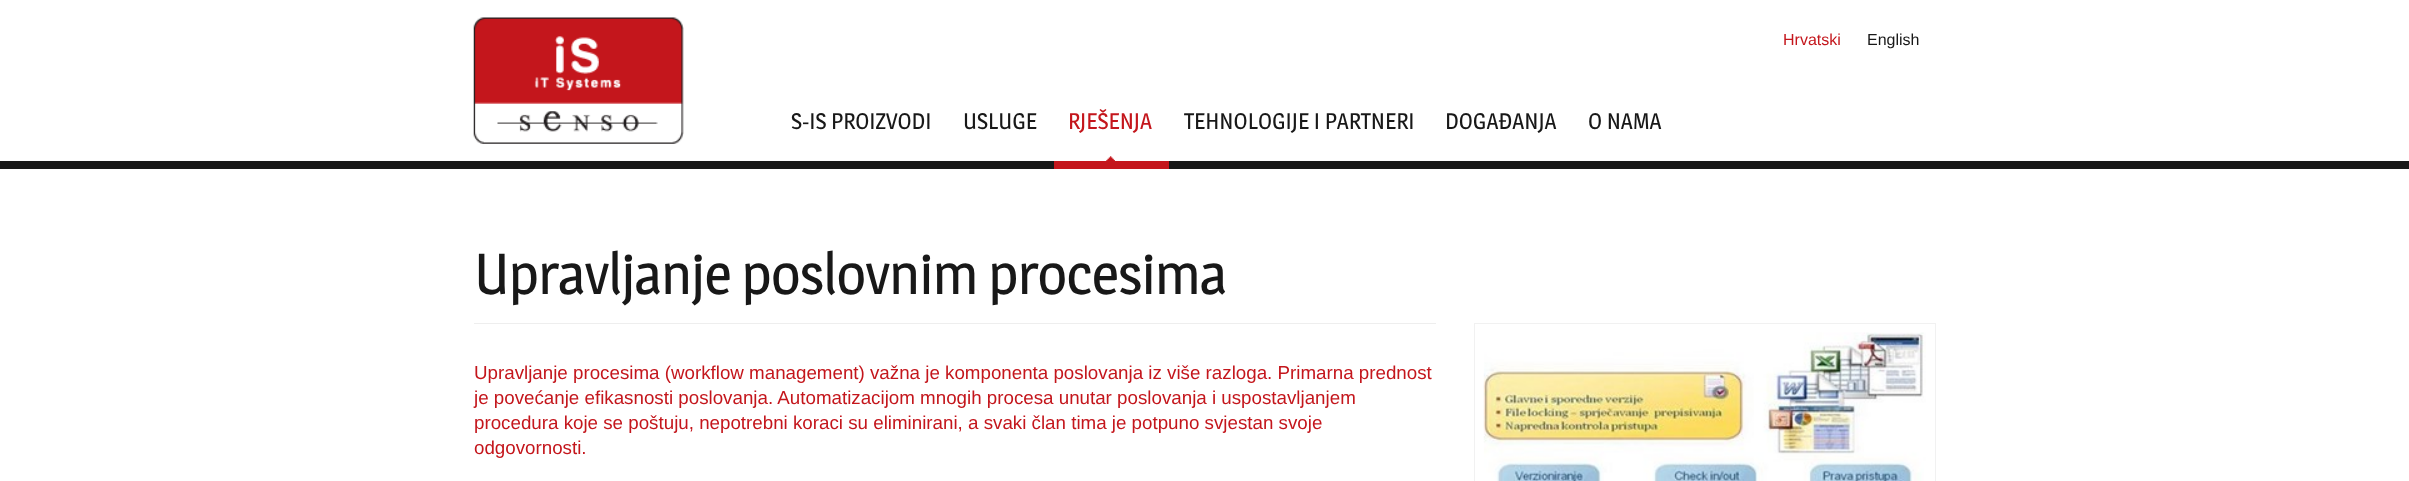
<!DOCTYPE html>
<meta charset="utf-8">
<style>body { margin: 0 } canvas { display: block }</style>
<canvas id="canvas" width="2409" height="481"></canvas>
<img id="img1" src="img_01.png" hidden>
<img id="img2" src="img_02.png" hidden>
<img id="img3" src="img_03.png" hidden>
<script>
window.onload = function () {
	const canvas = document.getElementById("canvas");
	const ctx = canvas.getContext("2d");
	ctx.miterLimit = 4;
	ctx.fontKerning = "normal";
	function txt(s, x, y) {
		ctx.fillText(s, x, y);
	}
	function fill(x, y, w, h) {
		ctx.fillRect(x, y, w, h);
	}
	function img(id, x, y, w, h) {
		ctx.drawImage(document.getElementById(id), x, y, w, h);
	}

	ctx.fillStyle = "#FFFFFF";
	fill(0, 0, 2409, 481);
	ctx.fillStyle = "#181818";
	fill(0, 161, 2409, 8);
	img("img1", 473, 17, 211, 127);
	ctx.fillStyle = "#C4161C";
	fill(1054, 161, 115, 8);
	img("img2", 1106, 156, 9, 5);
	ctx.fillStyle = "#EEEEEE";
	fill(474, 323, 962, 1);
	ctx.strokeStyle = "#F1F1F1";
	ctx.strokeRect(1474.5, 323.5, 461, 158);
	img("img3", 1483, 332, 443, 149);
	ctx.font = "16px Liberation Sans";
	ctx.fillStyle = "#C4161C";
	txt("Hrvatski", 1783, 45);
	ctx.fillStyle = "#181818";
	txt("English", 1867, 45);
	ctx.font = "22.5px Magra";
	txt("S-IS PROIZVODI", 791, 129);
	txt("USLUGE", 963, 129);
	ctx.fillStyle = "#C4161C";
	txt("RJEŠENJA", 1068, 129);
	ctx.fillStyle = "#181818";
	txt("TEHNOLOGIJE I PARTNERI", 1184, 129);
	txt("DOGAĐANJA", 1445, 129);
	txt("O NAMA", 1588, 129);
	ctx.letterSpacing = "-1.15px";
	ctx.font = "57.5px Magra";
	txt("Upravljanje poslovnim procesima", 474, 294);
	ctx.letterSpacing = "0px";
	ctx.font = "18.75px Liberation Sans";
	ctx.fillStyle = "#C4161C";
	txt("Upravljanje procesima (workflow management) važna je komponenta poslovanja iz više razloga. Primarna prednost", 474, 379);
	txt("je povećanje efikasnosti poslovanja. Automatizacijom mnogih procesa unutar poslovanja i uspostavljanjem", 474, 404);
	txt("procedura koje se poštuju, nepotrebni koraci su eliminirani, a svaki član tima je potpuno svjestan svoje", 474, 429);
	txt("odgovornosti.", 474, 454);
};
</script>
